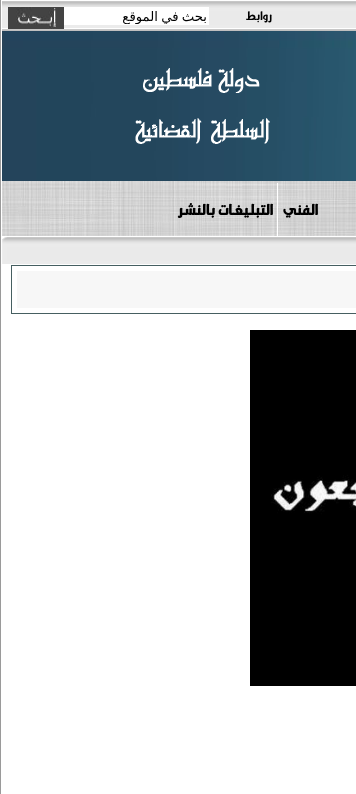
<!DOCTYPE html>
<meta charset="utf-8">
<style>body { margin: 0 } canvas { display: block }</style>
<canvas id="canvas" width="356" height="794"></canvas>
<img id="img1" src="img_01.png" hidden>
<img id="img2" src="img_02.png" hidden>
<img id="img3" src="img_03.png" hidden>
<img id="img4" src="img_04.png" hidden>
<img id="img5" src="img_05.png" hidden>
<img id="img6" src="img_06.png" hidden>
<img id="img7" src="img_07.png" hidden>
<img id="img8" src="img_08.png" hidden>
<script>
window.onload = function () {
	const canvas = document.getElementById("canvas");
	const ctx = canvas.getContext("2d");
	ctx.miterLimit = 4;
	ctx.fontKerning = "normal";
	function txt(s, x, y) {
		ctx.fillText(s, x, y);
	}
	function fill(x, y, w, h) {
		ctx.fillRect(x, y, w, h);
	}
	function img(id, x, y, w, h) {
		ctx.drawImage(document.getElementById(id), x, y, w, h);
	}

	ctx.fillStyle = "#FFFFFF";
	fill(0, 0, 356, 794);
	img("img1", 2, 1, 354, 30);
	fill(64, 7, 145, 18);
	img("img2", 8, 7, 56, 22);
	img("img3", 2, 31, 354, 150);
	img("img4", 2, 181, 354, 1);
	img("img5", 2, 182, 354, 54);
	fill(277, 183, 1, 53);
	img("img6", 7, 237, 349, 27);
	img("img7", 2, 237, 5, 27);
	ctx.strokeStyle = "#465F61";
	ctx.strokeRect(11.5, 265.5, 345, 48);
	ctx.fillStyle = "#F7F7F7";
	fill(17, 271, 339, 37);
	ctx.strokeStyle = "#000000";
	ctx.strokeRect(250.5, 330.5, 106, 355);
	img("img8", 251, 331, 105, 354);
	ctx.fillStyle = "#9A9A9A";
	fill(0, 0, 1, 794);
	ctx.direction = "rtl";
	ctx.font = "13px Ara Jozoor";
	ctx.fillStyle = "#000000";
	txt("روابط", 272, 20);
	ctx.save();
	ctx.beginPath();
	ctx.rect(61, 9, 146, 15);
	ctx.clip();
	ctx.wordSpacing = "-1px";
	ctx.font = "13.25px DejaVu Sans";
	txt("بحث في الموقع", 207, 21);
	ctx.restore();
	ctx.font = "bold 16px Ara Jozoor";
	txt("الفني", 318, 215);
	txt("التبليغات بالنشر", 273, 215);
};
</script>
